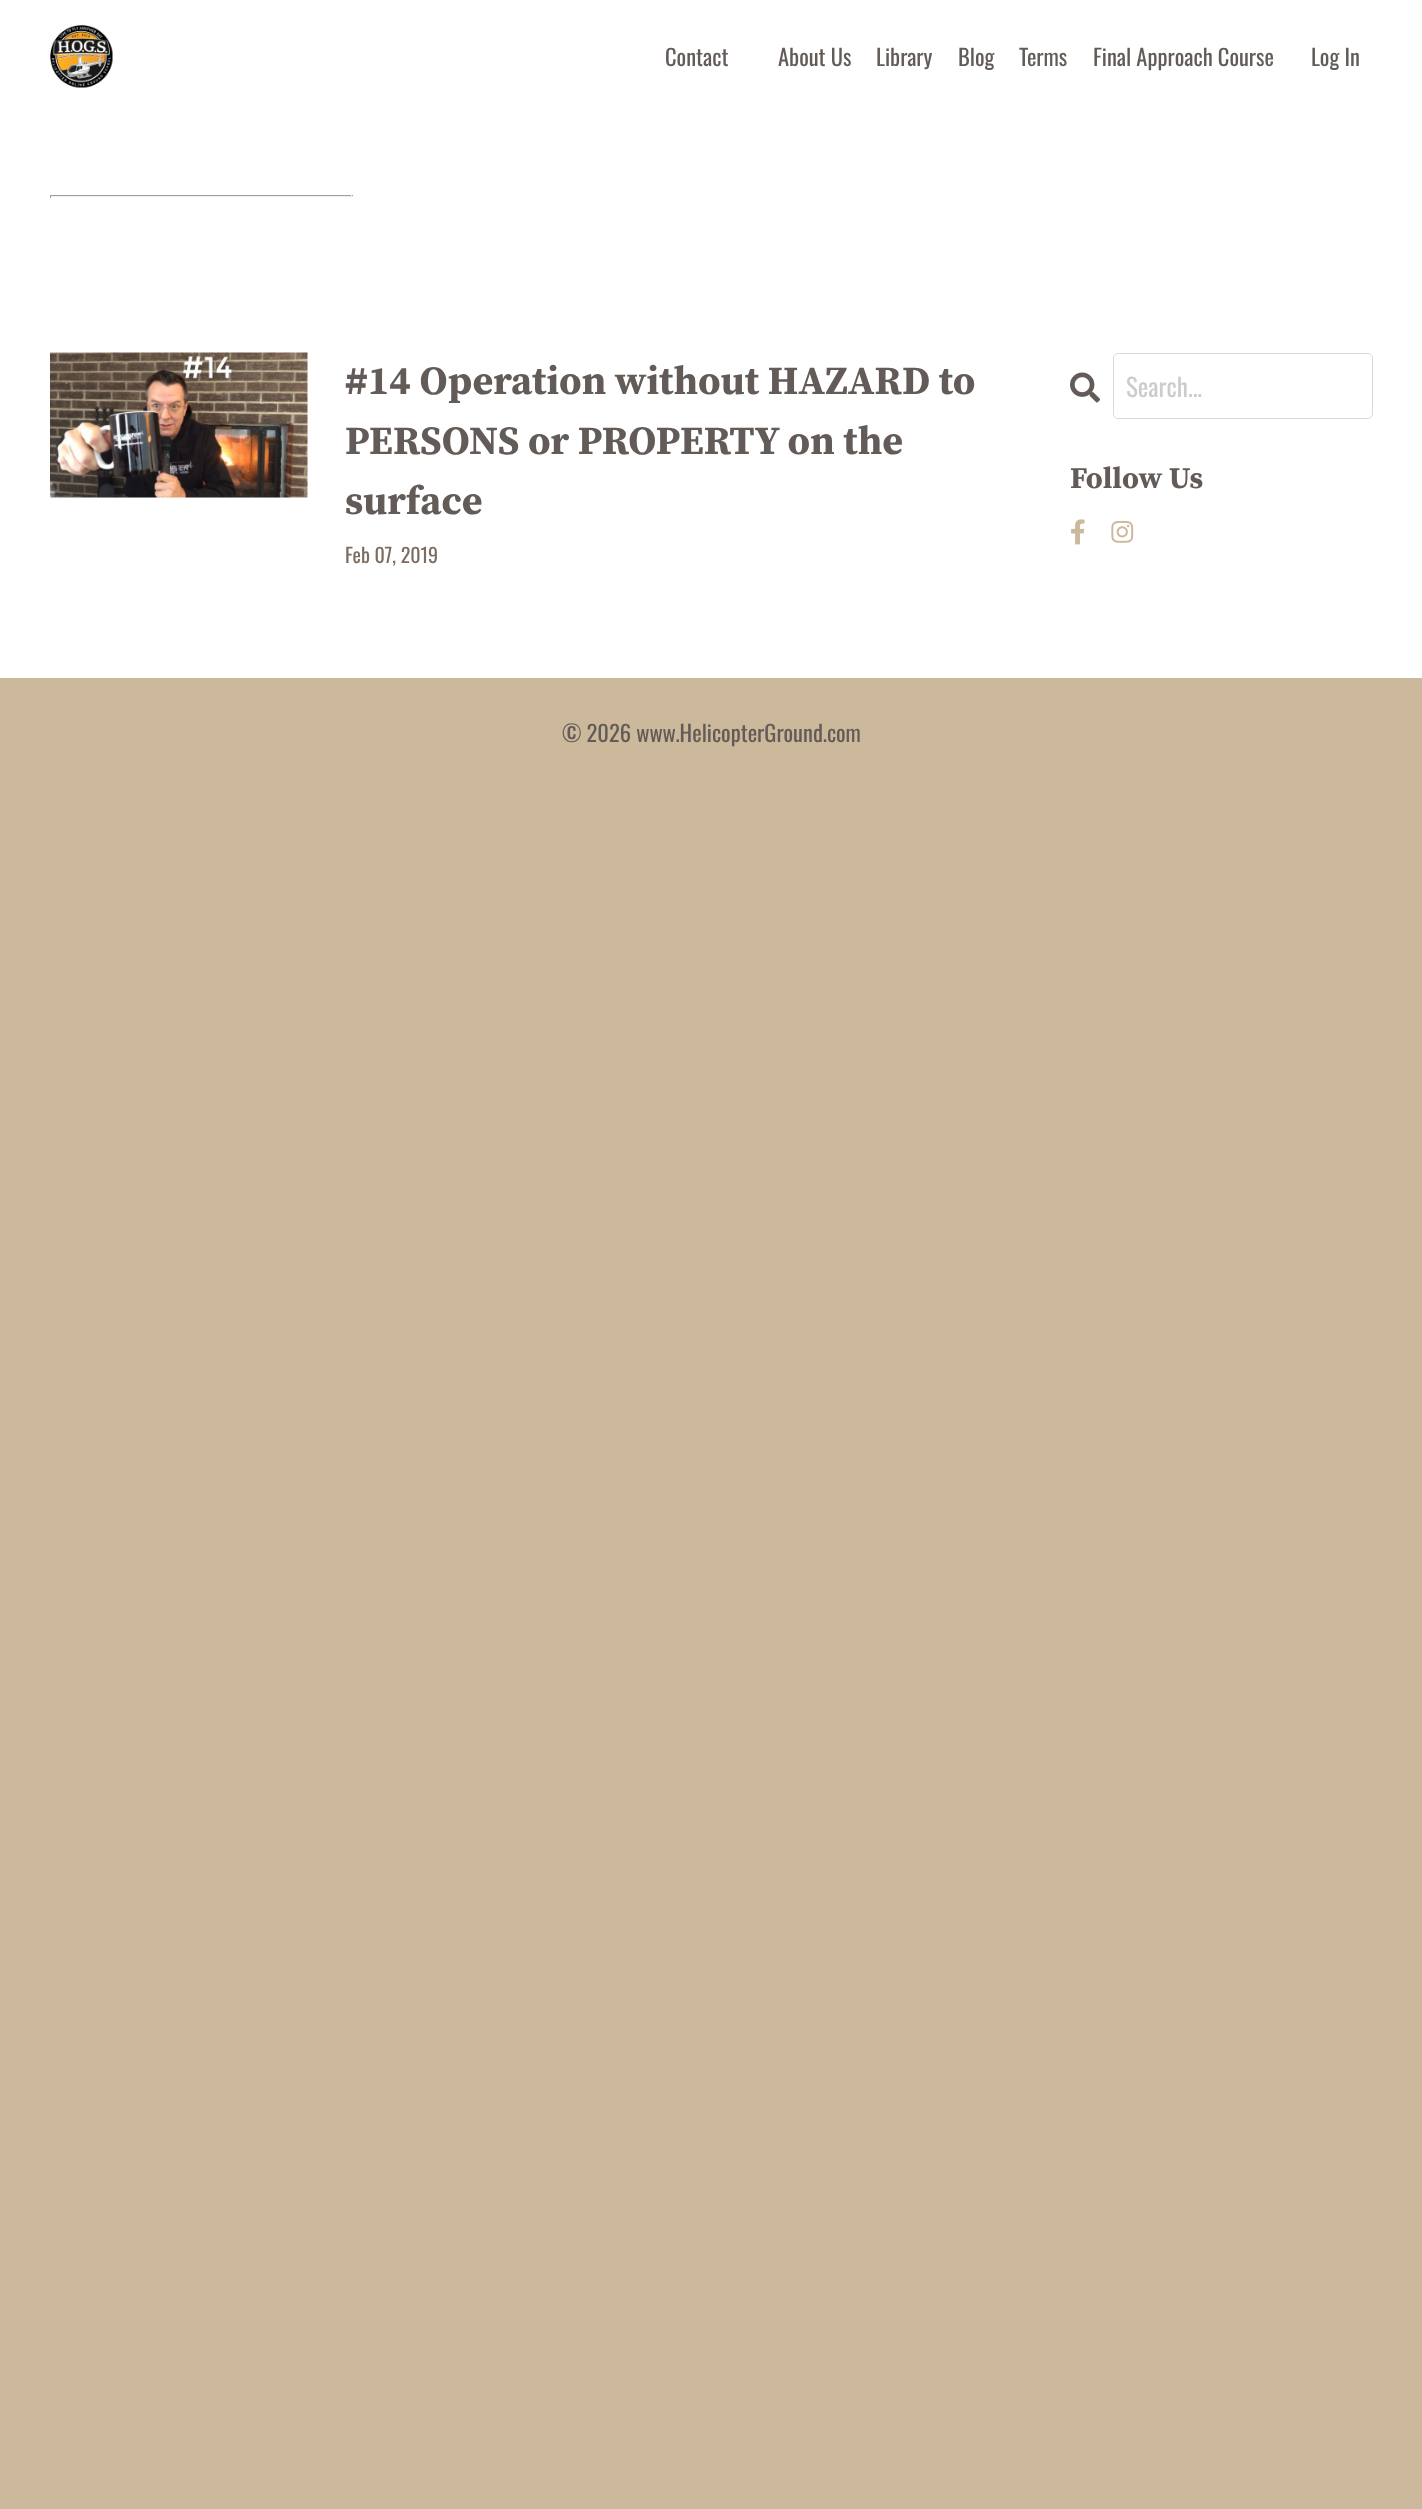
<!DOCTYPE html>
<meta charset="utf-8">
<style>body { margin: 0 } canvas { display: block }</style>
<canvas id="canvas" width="1422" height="2509"></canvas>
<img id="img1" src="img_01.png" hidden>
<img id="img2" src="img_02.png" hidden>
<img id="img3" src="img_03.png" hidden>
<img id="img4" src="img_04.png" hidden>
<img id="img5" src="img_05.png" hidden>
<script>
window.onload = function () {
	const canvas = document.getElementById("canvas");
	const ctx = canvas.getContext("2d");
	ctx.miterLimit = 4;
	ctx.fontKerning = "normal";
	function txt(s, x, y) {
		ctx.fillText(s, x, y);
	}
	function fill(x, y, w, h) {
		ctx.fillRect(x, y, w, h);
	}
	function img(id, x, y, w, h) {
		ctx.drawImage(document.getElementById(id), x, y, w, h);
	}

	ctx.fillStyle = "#FFFFFF";
	fill(0, 0, 1422, 2509);
	img("img1", 50, 25, 63, 63);
	ctx.fillStyle = "#9F9F9F";
	fill(50, 195, 303, 1);
	ctx.fillStyle = "#EEEEEE";
	fill(351, 195, 1, 3);
	fill(50, 196, 303, 1);
	ctx.fillStyle = "#9F9F9F";
	fill(50, 195, 1, 3);
	img("img2", 50, 352, 258, 146);
	img("img3", 1070, 372, 30, 31);
	ctx.beginPath();
	ctx.roundRect(1113.5, 353.5, 259, 65, 4.5);
	ctx.strokeStyle = "#D9D9D9";
	ctx.stroke();
	img("img4", 1071, 519, 14, 26);
	img("img5", 1111, 520, 23, 23);
	ctx.fillStyle = "#CCB89A";
	fill(0, 678, 1422, 1831);
	ctx.font = "22.5px Oswald";
	ctx.fillStyle = "#625B57";
	txt("Contact", 665, 66);
	txt("About Us", 778, 66);
	txt("Library", 876, 66);
	txt("Blog", 958, 66);
	txt("Terms", 1019, 66);
	txt("Final Approach Course", 1093, 66);
	txt("Log In", 1311, 66);
	ctx.font = "bold 40px Source Serif Pro";
	txt("#14 Operation without HAZARD to", 345, 394);
	txt("PERSONS or PROPERTY on the", 345, 454);
	txt("surface", 345, 514);
	ctx.font = "20px Oswald";
	ctx.fillStyle = "#7D6C60";
	txt("Feb 07, 2019", 345, 563);
	ctx.font = "25px Oswald";
	ctx.fillStyle = "#CCCCCC";
	txt("Search...", 1126, 397);
	ctx.font = "bold 30px Source Serif Pro";
	ctx.fillStyle = "#625B57";
	txt("Follow Us", 1070, 488);
	ctx.font = "22.5px Oswald";
	txt("© 2026 www.HelicopterGround.com", 562, 742);
};
</script>
